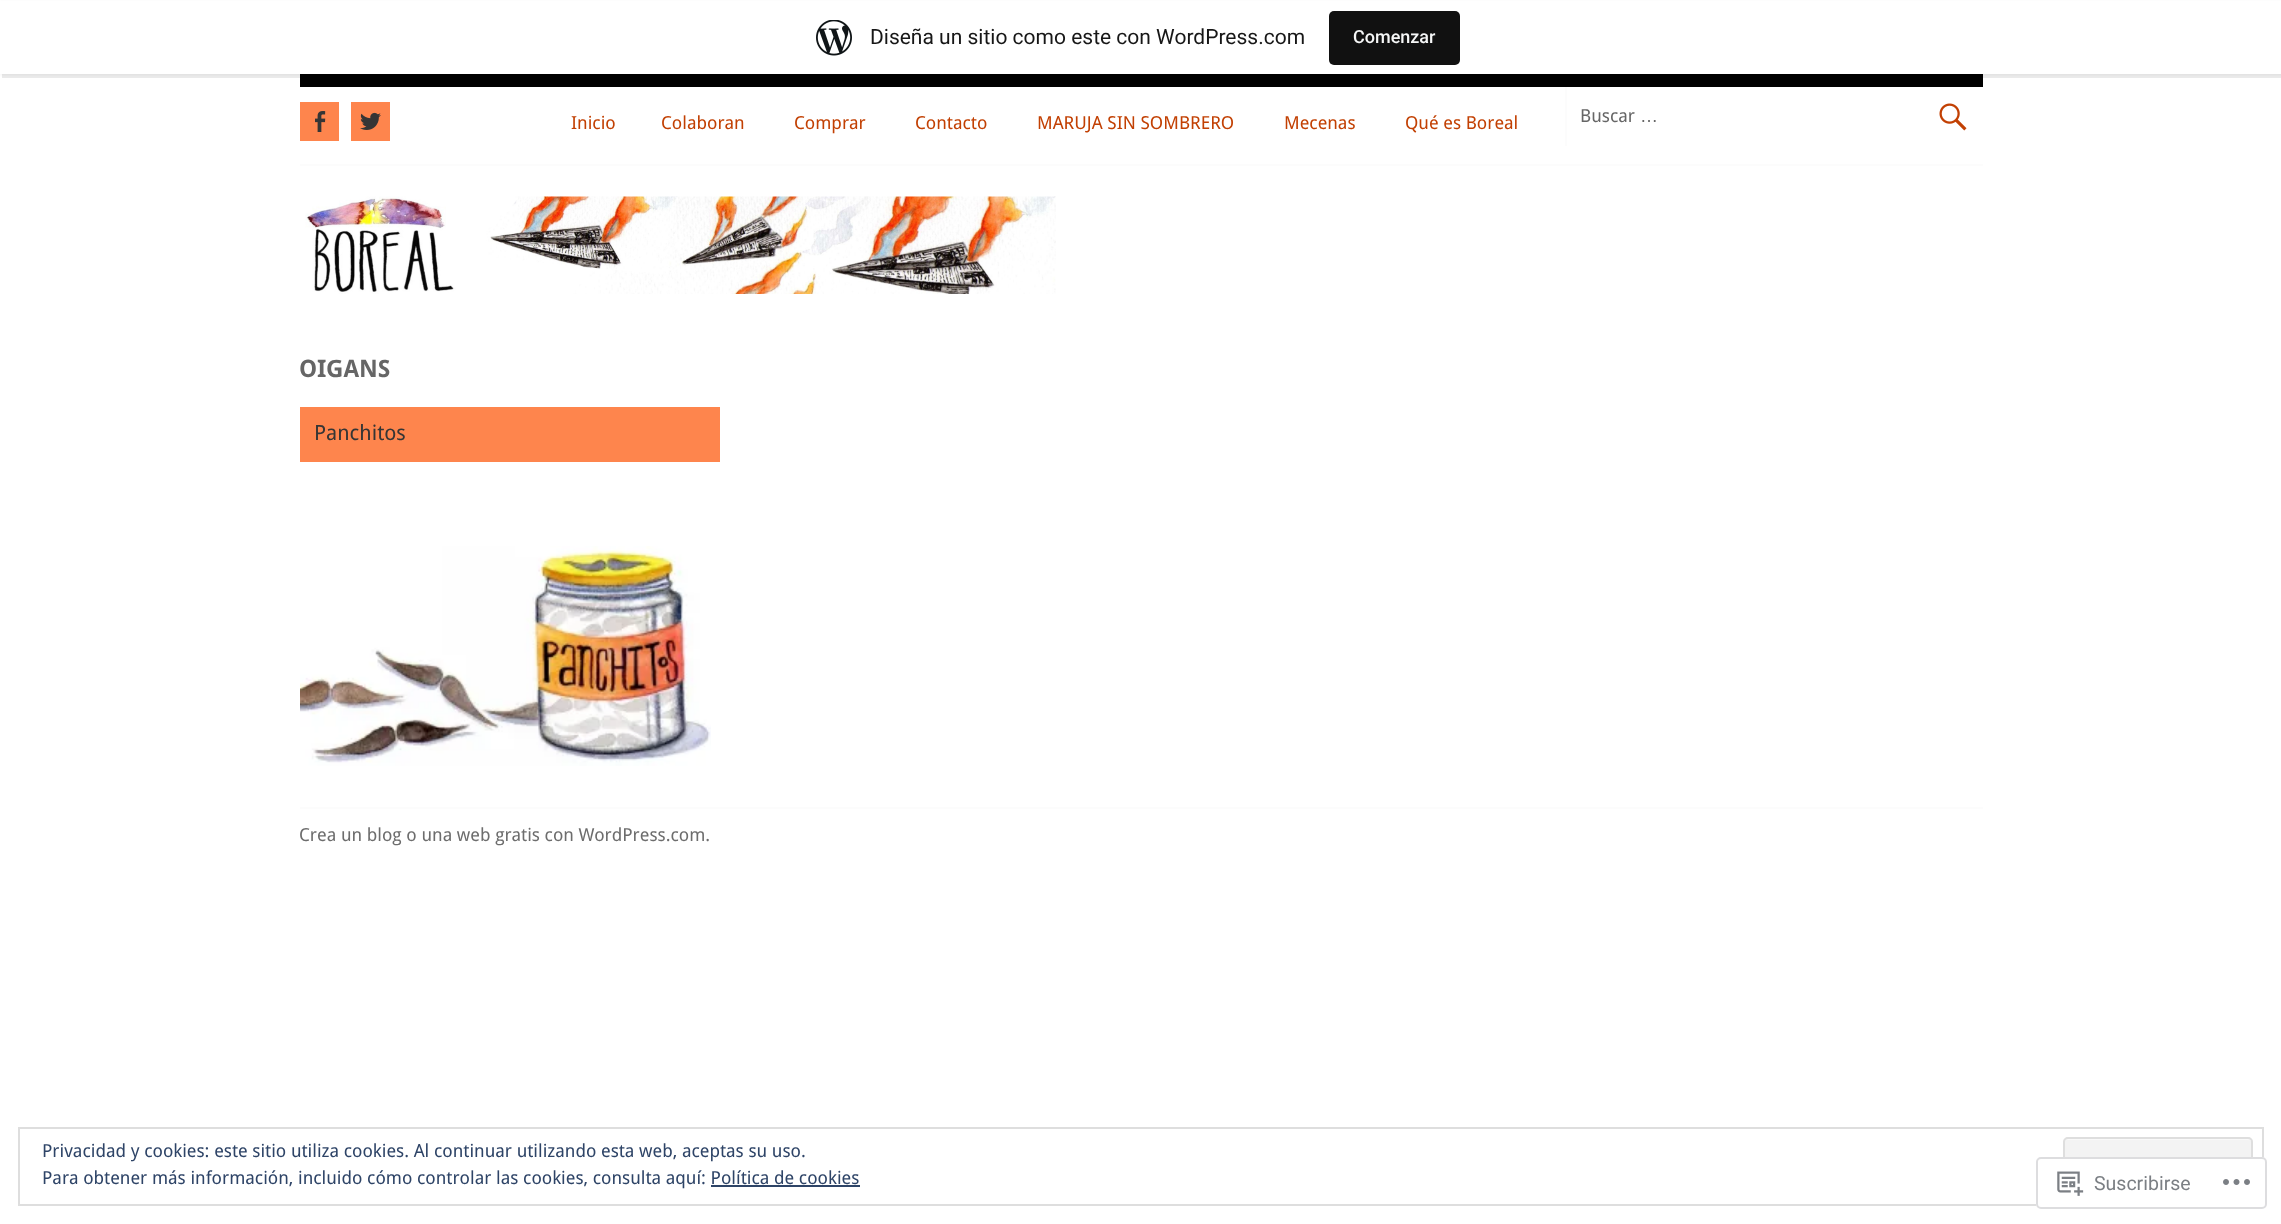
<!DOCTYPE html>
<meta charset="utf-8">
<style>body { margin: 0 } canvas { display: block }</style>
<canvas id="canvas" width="2281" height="1224"></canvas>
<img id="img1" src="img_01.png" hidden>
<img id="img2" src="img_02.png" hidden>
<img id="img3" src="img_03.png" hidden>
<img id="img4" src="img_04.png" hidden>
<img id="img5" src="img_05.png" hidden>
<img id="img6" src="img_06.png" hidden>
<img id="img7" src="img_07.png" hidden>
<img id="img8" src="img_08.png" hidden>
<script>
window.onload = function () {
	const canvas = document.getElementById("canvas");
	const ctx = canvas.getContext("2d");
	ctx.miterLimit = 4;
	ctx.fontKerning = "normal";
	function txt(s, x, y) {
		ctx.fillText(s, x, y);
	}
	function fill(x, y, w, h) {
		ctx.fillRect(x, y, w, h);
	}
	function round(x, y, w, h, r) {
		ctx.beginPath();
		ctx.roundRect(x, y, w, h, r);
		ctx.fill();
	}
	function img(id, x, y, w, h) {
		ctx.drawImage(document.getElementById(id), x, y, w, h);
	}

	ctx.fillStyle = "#FFFFFF";
	fill(0, 0, 2281, 1224);
	ctx.fillStyle = "#000000";
	fill(300, 74, 1683, 13);
	ctx.fillStyle = "rgba(0, 0, 0, 0.05)";
	ctx.filter = "blur(1.5px)";
	ctx.beginPath();
	ctx.rect(0, 2, 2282, 73);
	ctx.fill();
	ctx.filter = "none";
	ctx.fillStyle = "rgba(0, 0, 0, 0.08)";
	ctx.beginPath();
	ctx.moveTo(2, 74);
	ctx.lineTo(2, 78);
	ctx.lineTo(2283, 78);
	ctx.lineTo(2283, 5);
	ctx.lineTo(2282, 5);
	ctx.lineTo(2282, 74);
	ctx.closePath();
	ctx.fill();
	ctx.fillStyle = "#FFFFFF";
	fill(0, 1, 2281, 73);
	img("img1", 816, 20, 36, 36);
	ctx.fillStyle = "#111111";
	round(1329, 11, 131, 54, 5);
	ctx.fillStyle = "#FCFCFC";
	fill(300, 164, 1683, 2);
	ctx.fillStyle = "#FE854D";
	fill(300, 102, 39, 39);
	img("img2", 315, 111, 11, 21);
	fill(351, 102, 39, 39);
	img("img3", 360, 112, 21, 18);
	ctx.fillStyle = "#FCFCFC";
	fill(1565, 87, 2, 59);
	img("img4", 1939, 103, 28, 28);
	img("img5", 305, 196, 751, 98);
	ctx.fillStyle = "#FE854D";
	fill(300, 407, 420, 55);
	img("img6", 300, 546, 411, 220);
	ctx.fillStyle = "#FCFCFC";
	fill(300, 807, 1683, 2);
	ctx.strokeStyle = "#DEDEDE";
	ctx.lineWidth = 2;
	ctx.strokeRect(19, 1128, 2244, 77);
	ctx.fillStyle = "#F3F3F3";
	round(2063, 1137, 190, 59, 5);
	ctx.fillStyle = "#F9F9F9";
	ctx.beginPath();
	ctx.moveTo(2067, 1140);
	ctx.lineTo(2248, 1140);
	ctx.bezierCurveTo(2250, 1140, 2252, 1141, 2252, 1143);
	ctx.bezierCurveTo(2252, 1141, 2251, 1139, 2249, 1139);
	ctx.lineTo(2067, 1139);
	ctx.bezierCurveTo(2065, 1139, 2064, 1141, 2064, 1143);
	ctx.bezierCurveTo(2064, 1141, 2065, 1140, 2067, 1140);
	ctx.closePath();
	ctx.fill();
	ctx.beginPath();
	ctx.roundRect(2064, 1138, 188, 57, 4);
	ctx.stroke();
	ctx.fillStyle = "#2E4467";
	fill(711, 1185, 149, 2);
	ctx.fillStyle = "rgba(255, 255, 255, 0.98)";
	round(2036, 1157, 231, 52, 5);
	ctx.beginPath();
	ctx.roundRect(2037, 1158, 229, 50, 4);
	ctx.strokeStyle = "rgba(220, 220, 222, 0.98)";
	ctx.stroke();
	img("img7", 2057, 1171, 27, 25);
	img("img8", 2223, 1179, 27, 6);
	ctx.font = "21px Roboto";
	ctx.fillStyle = "#171717";
	txt("Diseña un sitio como este con WordPress.com", 870, 44);
	ctx.font = "500 18px Roboto";
	ctx.fillStyle = "#F6F7F7";
	txt("Comenzar", 1353, 43);
	ctx.font = "18px Droid Sans";
	ctx.fillStyle = "#C24003";
	txt("Inicio", 571, 129);
	txt("Colaboran", 661, 129);
	txt("Comprar", 794, 129);
	txt("Contacto", 915, 129);
	txt("MARUJA SIN SOMBRERO", 1037, 129);
	txt("Mecenas", 1284, 129);
	txt("Qué es Boreal", 1405, 129);
	ctx.fillStyle = "#666666";
	txt("Buscar", 1580, 122);
	ctx.font = "18px Liberation Sans";
	txt("…", 1640, 122);
	ctx.font = "bold 24px Droid Sans";
	txt("OIGANS", 299, 377);
	ctx.font = "21px Droid Sans";
	ctx.fillStyle = "#353535";
	txt("Panchitos", 314, 440);
	ctx.font = "18px Droid Sans";
	ctx.fillStyle = "#6D6D6D";
	txt("Crea un blog o una web gratis con WordPress.com.", 299, 841);
	ctx.fillStyle = "#2E4467";
	txt("Privacidad y cookies: este sitio utiliza cookies. Al continuar utilizando esta web, aceptas su uso.", 42, 1157);
	txt("Para obtener más información, incluido cómo controlar las cookies, consulta aquí: Política de cookies", 42, 1184);
	ctx.font = "19.5px Roboto";
	ctx.fillStyle = "#7B7F84";
	txt("Suscribirse", 2094, 1190);
};
</script>
